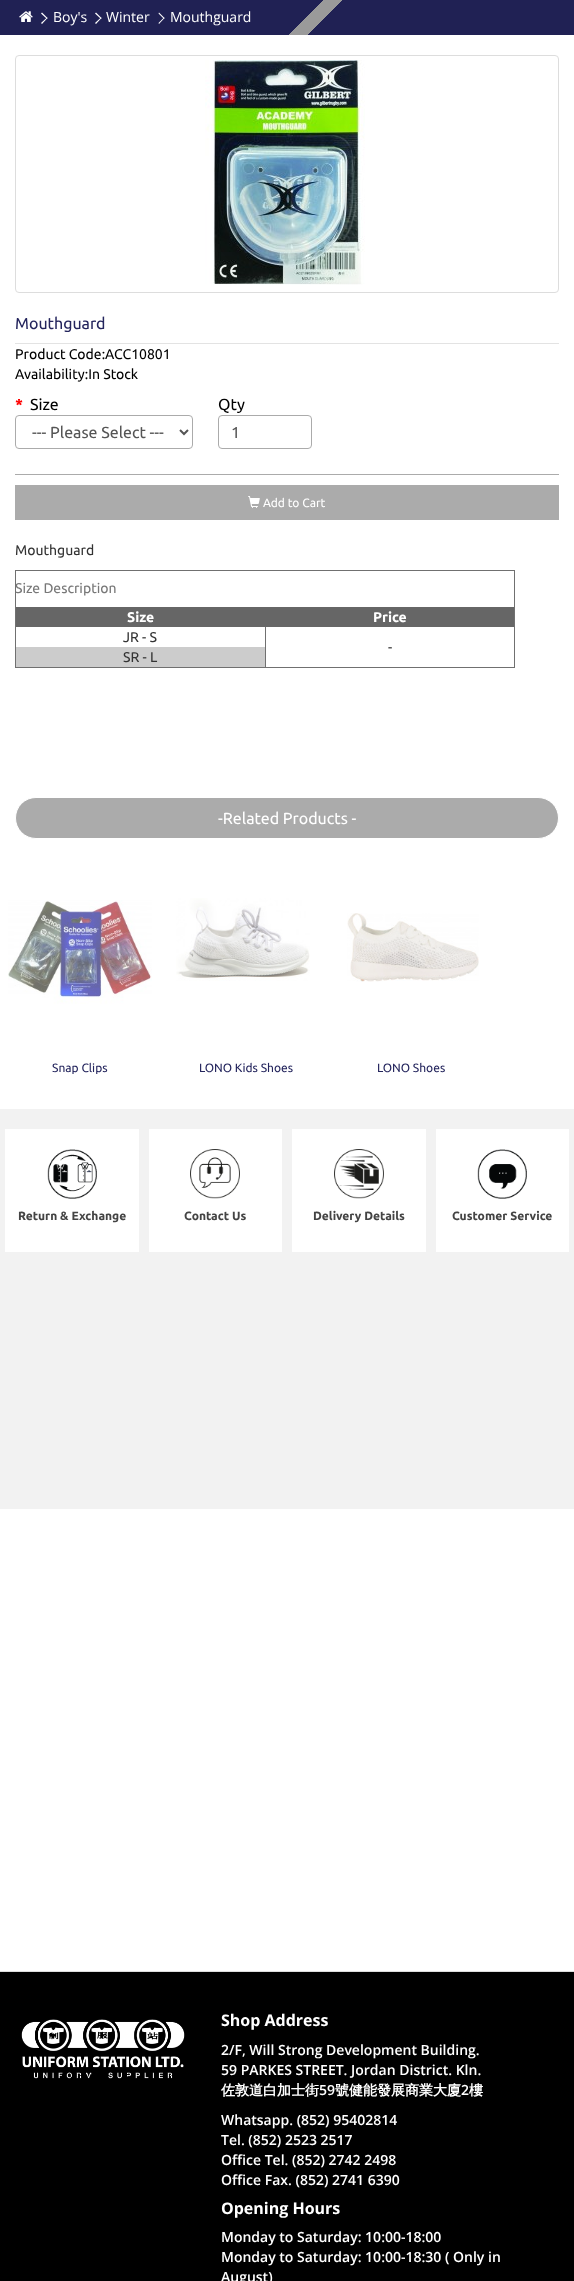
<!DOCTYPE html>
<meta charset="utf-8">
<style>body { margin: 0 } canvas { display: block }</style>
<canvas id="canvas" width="574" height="2281"></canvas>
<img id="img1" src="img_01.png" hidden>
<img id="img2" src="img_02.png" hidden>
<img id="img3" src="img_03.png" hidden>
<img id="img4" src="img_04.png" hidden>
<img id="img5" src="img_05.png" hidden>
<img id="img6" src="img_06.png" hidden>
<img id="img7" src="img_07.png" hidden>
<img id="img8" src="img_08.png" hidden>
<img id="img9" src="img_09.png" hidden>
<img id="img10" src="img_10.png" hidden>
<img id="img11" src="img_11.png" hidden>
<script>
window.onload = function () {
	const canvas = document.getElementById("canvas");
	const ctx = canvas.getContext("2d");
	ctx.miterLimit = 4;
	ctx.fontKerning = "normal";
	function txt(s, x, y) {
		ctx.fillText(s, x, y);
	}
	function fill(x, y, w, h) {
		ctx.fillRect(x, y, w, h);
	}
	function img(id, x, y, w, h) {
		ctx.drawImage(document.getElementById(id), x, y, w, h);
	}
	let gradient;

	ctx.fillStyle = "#FFFFFF";
	fill(0, 0, 574, 2281);
	gradient = ctx.createLinearGradient(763, 420, -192, -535);
	gradient.addColorStop(0, "#9A9A9A");
	gradient.addColorStop(0, "#9A9A9A");
	gradient.addColorStop(0, "#202154");
	gradient.addColorStop(0.04, "#202154");
	gradient.addColorStop(0.04, "#9A9A9A");
	gradient.addColorStop(0.04, "#9A9A9A");
	gradient.addColorStop(0.04, "#202154");
	gradient.addColorStop(0.07, "#202154");
	gradient.addColorStop(0.07, "#9A9A9A");
	gradient.addColorStop(0.07, "#9A9A9A");
	gradient.addColorStop(0.07, "#202154");
	gradient.addColorStop(0.11, "#202154");
	gradient.addColorStop(0.11, "#9A9A9A");
	gradient.addColorStop(0.11, "#9A9A9A");
	gradient.addColorStop(0.11, "#202154");
	gradient.addColorStop(0.15, "#202154");
	gradient.addColorStop(0.15, "#9A9A9A");
	gradient.addColorStop(0.15, "#9A9A9A");
	gradient.addColorStop(0.15, "#202154");
	gradient.addColorStop(0.19, "#202154");
	gradient.addColorStop(0.19, "#9A9A9A");
	gradient.addColorStop(0.19, "#9A9A9A");
	gradient.addColorStop(0.19, "#202154");
	gradient.addColorStop(0.22, "#202154");
	gradient.addColorStop(0.22, "#9A9A9A");
	gradient.addColorStop(0.22, "#9A9A9A");
	gradient.addColorStop(0.22, "#202154");
	gradient.addColorStop(0.26, "#202154");
	gradient.addColorStop(0.26, "#9A9A9A");
	gradient.addColorStop(0.26, "#9A9A9A");
	gradient.addColorStop(0.26, "#202154");
	gradient.addColorStop(0.3, "#202154");
	gradient.addColorStop(0.3, "#9A9A9A");
	gradient.addColorStop(0.3, "#9A9A9A");
	gradient.addColorStop(0.3, "#202154");
	gradient.addColorStop(0.33, "#202154");
	gradient.addColorStop(0.33, "#9A9A9A");
	gradient.addColorStop(0.33, "#9A9A9A");
	gradient.addColorStop(0.33, "#202154");
	gradient.addColorStop(0.37, "#202154");
	gradient.addColorStop(0.37, "#9A9A9A");
	gradient.addColorStop(0.37, "#9A9A9A");
	gradient.addColorStop(0.37, "#202154");
	gradient.addColorStop(0.41, "#202154");
	gradient.addColorStop(0.41, "#9A9A9A");
	gradient.addColorStop(0.41, "#9A9A9A");
	gradient.addColorStop(0.41, "#202154");
	gradient.addColorStop(0.44, "#202154");
	gradient.addColorStop(0.44, "#9A9A9A");
	gradient.addColorStop(0.45, "#9A9A9A");
	gradient.addColorStop(0.45, "#202154");
	gradient.addColorStop(0.48, "#202154");
	gradient.addColorStop(0.48, "#9A9A9A");
	gradient.addColorStop(0.48, "#9A9A9A");
	gradient.addColorStop(0.48, "#202154");
	gradient.addColorStop(0.52, "#202154");
	gradient.addColorStop(0.52, "#9A9A9A");
	gradient.addColorStop(0.52, "#9A9A9A");
	gradient.addColorStop(0.52, "#202154");
	gradient.addColorStop(0.56, "#202154");
	gradient.addColorStop(0.56, "#9A9A9A");
	gradient.addColorStop(0.56, "#9A9A9A");
	gradient.addColorStop(0.56, "#202154");
	gradient.addColorStop(0.59, "#202154");
	gradient.addColorStop(0.59, "#9A9A9A");
	gradient.addColorStop(0.59, "#9A9A9A");
	gradient.addColorStop(0.59, "#202154");
	gradient.addColorStop(0.63, "#202154");
	gradient.addColorStop(0.63, "#9A9A9A");
	gradient.addColorStop(0.63, "#9A9A9A");
	gradient.addColorStop(0.63, "#202154");
	gradient.addColorStop(0.67, "#202154");
	gradient.addColorStop(0.67, "#9A9A9A");
	gradient.addColorStop(0.67, "#9A9A9A");
	gradient.addColorStop(0.67, "#202154");
	gradient.addColorStop(0.7, "#202154");
	gradient.addColorStop(0.7, "#9A9A9A");
	gradient.addColorStop(0.7, "#9A9A9A");
	gradient.addColorStop(0.7, "#202154");
	gradient.addColorStop(0.74, "#202154");
	gradient.addColorStop(0.74, "#9A9A9A");
	gradient.addColorStop(0.74, "#9A9A9A");
	gradient.addColorStop(0.74, "#202154");
	gradient.addColorStop(0.78, "#202154");
	gradient.addColorStop(0.78, "#9A9A9A");
	gradient.addColorStop(0.78, "#9A9A9A");
	gradient.addColorStop(0.78, "#202154");
	gradient.addColorStop(0.81, "#202154");
	gradient.addColorStop(0.81, "#9A9A9A");
	gradient.addColorStop(0.82, "#9A9A9A");
	gradient.addColorStop(0.82, "#202154");
	gradient.addColorStop(0.85, "#202154");
	gradient.addColorStop(0.85, "#9A9A9A");
	gradient.addColorStop(0.85, "#9A9A9A");
	gradient.addColorStop(0.85, "#202154");
	gradient.addColorStop(0.89, "#202154");
	gradient.addColorStop(0.89, "#9A9A9A");
	gradient.addColorStop(0.89, "#9A9A9A");
	gradient.addColorStop(0.89, "#202154");
	gradient.addColorStop(0.93, "#202154");
	gradient.addColorStop(0.93, "#9A9A9A");
	gradient.addColorStop(0.93, "#9A9A9A");
	gradient.addColorStop(0.93, "#202154");
	gradient.addColorStop(0.96, "#202154");
	gradient.addColorStop(0.96, "#9A9A9A");
	gradient.addColorStop(0.96, "#9A9A9A");
	gradient.addColorStop(0.96, "#202154");
	gradient.addColorStop(1, "#202154");
	ctx.fillStyle = gradient;
	fill(0, 0, 574, 35);
	img("img1", 19, 11, 14, 11);
	ctx.fillStyle = "#FFFFFF";
	ctx.beginPath();
	ctx.moveTo(41, 13.5);
	ctx.lineTo(42, 12.5);
	ctx.lineTo(47.5, 18);
	ctx.lineTo(47, 19);
	ctx.closePath();
	ctx.fill();
	ctx.beginPath();
	ctx.moveTo(41, 23);
	ctx.lineTo(47, 17.5);
	ctx.lineTo(47.5, 18);
	ctx.lineTo(42, 24);
	ctx.closePath();
	ctx.fill();
	ctx.beginPath();
	ctx.moveTo(95, 13.5);
	ctx.lineTo(96, 12.5);
	ctx.lineTo(101.5, 18);
	ctx.lineTo(101, 19);
	ctx.closePath();
	ctx.fill();
	ctx.beginPath();
	ctx.moveTo(95, 23);
	ctx.lineTo(101, 17.5);
	ctx.lineTo(101.5, 18);
	ctx.lineTo(96, 24);
	ctx.closePath();
	ctx.fill();
	ctx.beginPath();
	ctx.moveTo(158.5, 13.5);
	ctx.lineTo(159, 12.5);
	ctx.lineTo(164.5, 18);
	ctx.lineTo(164, 19);
	ctx.closePath();
	ctx.fill();
	ctx.beginPath();
	ctx.moveTo(158.5, 23);
	ctx.lineTo(164, 17.5);
	ctx.lineTo(164.5, 18);
	ctx.lineTo(159, 24);
	ctx.closePath();
	ctx.fill();
	ctx.beginPath();
	ctx.roundRect(15.5, 55.5, 543, 237, 3.5);
	ctx.strokeStyle = "#DDDDDD";
	ctx.stroke();
	img("img2", 205, 60, 160, 225);
	ctx.fillStyle = "#E3E3E3";
	fill(15, 343, 544, 1);
	ctx.beginPath();
	ctx.roundRect(15.5, 415.5, 177, 33, 3.5);
	ctx.strokeStyle = "#ABABAB";
	ctx.stroke();
	ctx.beginPath();
	ctx.moveTo(180, 430);
	ctx.lineTo(184, 434);
	ctx.lineTo(188, 430);
	ctx.strokeStyle = "#555555";
	ctx.lineWidth = 2;
	ctx.stroke();
	ctx.beginPath();
	ctx.roundRect(218.5, 415.5, 93, 33, 3.5);
	ctx.strokeStyle = "#ABABAB";
	ctx.lineWidth = 1;
	ctx.stroke();
	ctx.fillStyle = "#ABABAB";
	fill(15, 474, 544, 1);
	fill(15, 485, 544, 35);
	img("img3", 248, 496, 12, 12);
	ctx.fillStyle = "#707070";
	fill(15, 570, 500, 1);
	fill(514, 570, 1, 98);
	fill(15, 667, 500, 1);
	fill(15, 570, 1, 98);
	ctx.fillStyle = "#666666";
	fill(16, 607, 498, 20);
	ctx.fillStyle = "#707070";
	fill(265, 627, 1, 41);
	ctx.fillStyle = "#CCCCCC";
	fill(16, 647, 249, 20);
	ctx.fillStyle = "#ABABAB";
	ctx.beginPath();
	ctx.roundRect(15.5, 797.5, 543, 41, 20.5);
	ctx.fill();
	ctx.strokeStyle = "#FFFFFF";
	ctx.stroke();
	img("img4", 8, 900, 144, 104);
	img("img5", 176, 898, 134, 83);
	img("img6", 347, 913, 132, 69);
	ctx.fillStyle = "#F2F2F2";
	fill(0, 1109, 574, 400);
	ctx.fillStyle = "#FFFFFF";
	fill(5, 1129, 134, 123);
	img("img7", 47, 1149, 50, 50);
	fill(149, 1129, 133, 123);
	img("img8", 190, 1149, 50, 50);
	fill(292, 1129, 134, 123);
	img("img9", 334, 1149, 50, 50);
	fill(436, 1129, 133, 123);
	img("img10", 477, 1149, 50, 50);
	ctx.fillStyle = "#000000";
	fill(0, 1972, 574, 309);
	ctx.fillStyle = "#DDDDDD";
	fill(0, 1971, 574, 1);
	img("img11", 21, 2019, 164, 60);
	ctx.font = "14px Open Sans";
	ctx.fillStyle = "#FFFFFF";
	txt("Boy's", 53, 22);
	txt("Winter", 106, 22);
	txt("Mouthguard", 170, 22);
	ctx.font = "16px Ubuntu";
	ctx.fillStyle = "#24255D";
	txt("Mouthguard", 15, 329);
	ctx.font = "14px Ubuntu";
	ctx.fillStyle = "#000000";
	txt("Product Code:ACC10801", 15, 359);
	txt("Availability:In Stock", 15, 379);
	ctx.font = "bold 16px Ubuntu";
	ctx.fillStyle = "#FF0000";
	txt("*", 15, 410);
	ctx.font = "16px Ubuntu";
	ctx.fillStyle = "#000000";
	txt("Size", 30, 410);
	ctx.fillStyle = "#555555";
	txt("--- Please Select ---", 32, 438);
	ctx.fillStyle = "#000000";
	txt("Qty", 218, 410);
	ctx.fillStyle = "#555555";
	txt("1", 231, 438);
	ctx.font = "12px Ubuntu";
	ctx.fillStyle = "#FFFFFF";
	txt("Add to Cart", 263, 507);
	ctx.font = "14px Ubuntu";
	ctx.fillStyle = "#333333";
	txt("Mouthguard", 15, 555);
	ctx.fillStyle = "#777777";
	txt("Size Description", 15, 593);
	ctx.font = "bold 14px Ubuntu";
	ctx.fillStyle = "#FFFFFF";
	txt("Size", 127, 622);
	txt("Price", 373, 622);
	ctx.font = "14px Ubuntu";
	ctx.fillStyle = "#333333";
	txt("JR - S", 123, 642);
	txt("-", 388, 652);
	txt("SR - L", 123, 662);
	ctx.font = "16px Ubuntu";
	ctx.fillStyle = "#FFFFFF";
	txt("-Related Products -", 218, 824);
	ctx.save();
	ctx.beginPath();
	ctx.rect(20, 1061, 120, 13);
	ctx.clip();
	ctx.font = "12px Ubuntu";
	ctx.fillStyle = "#24255D";
	txt("Snap Clips", 52, 1072);
	ctx.restore();
	ctx.font = "12px Ubuntu";
	ctx.fillStyle = "#24255D";
	txt("LONO Kids Shoes", 199, 1072);
	txt("LONO Shoes", 377, 1072);
	ctx.font = "bold 12px Ubuntu";
	ctx.fillStyle = "#444444";
	txt("Return & Exchange", 18, 1220);
	txt("Contact Us", 184, 1220);
	txt("Delivery Details", 313, 1220);
	txt("Customer Service", 452, 1220);
	ctx.font = "bold 16px Open Sans";
	ctx.fillStyle = "#FFFFFF";
	txt("Shop Address", 221, 2026);
	ctx.font = "600 14px Open Sans";
	txt("2/F, Will Strong Development Building.", 221, 2055);
	txt("59 PARKES STREET. Jordan District. Kln.", 221, 2075);
	ctx.font = "bold 14px WenQuanYi Zen Hei";
	txt("佐敦道白加士街", 221, 2095);
	ctx.font = "600 14px Open Sans";
	txt("59", 319, 2095);
	ctx.font = "bold 14px WenQuanYi Zen Hei";
	txt("號健能發展商業大廈", 335, 2095);
	ctx.font = "600 14px Open Sans";
	txt("2", 461, 2095);
	ctx.font = "bold 14px WenQuanYi Zen Hei";
	txt("樓", 469, 2095);
	ctx.font = "600 14px Open Sans";
	txt("Whatsapp. (852) 95402814", 221, 2125);
	txt("Tel. (852) 2523 2517", 221, 2145);
	txt("Office Tel. (852) 2742 2498", 221, 2165);
	txt("Office Fax. (852) 2741 6390", 221, 2185);
	ctx.font = "bold 16px Open Sans";
	txt("Opening Hours", 221, 2214);
	ctx.font = "600 14px Open Sans";
	txt("Monday to Saturday: 10:00-18:00", 221, 2242);
	txt("Monday to Saturday: 10:00-18:30 ( Only in", 221, 2262);
	txt("August)", 221, 2282);
};
</script>
